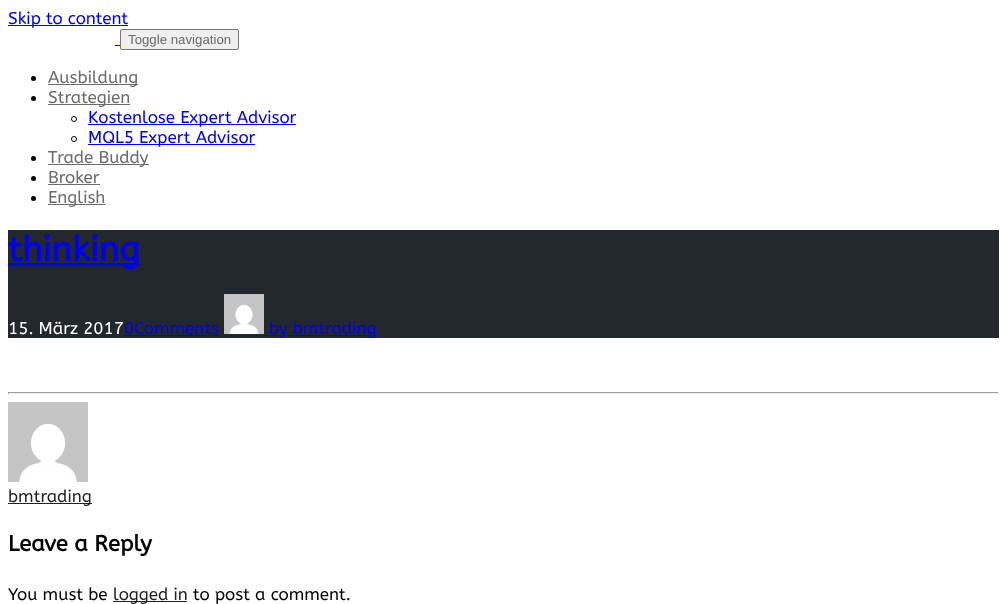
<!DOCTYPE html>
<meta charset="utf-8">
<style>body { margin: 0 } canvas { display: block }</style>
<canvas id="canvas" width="1007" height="604"></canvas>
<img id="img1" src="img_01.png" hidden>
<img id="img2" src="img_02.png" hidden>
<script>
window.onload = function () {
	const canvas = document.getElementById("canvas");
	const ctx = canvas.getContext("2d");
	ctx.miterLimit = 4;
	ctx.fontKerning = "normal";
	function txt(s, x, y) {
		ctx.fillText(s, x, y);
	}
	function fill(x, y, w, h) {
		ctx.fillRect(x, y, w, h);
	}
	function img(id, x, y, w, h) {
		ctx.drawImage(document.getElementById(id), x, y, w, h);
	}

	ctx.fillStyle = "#FFFFFF";
	fill(0, 0, 1007, 604);
	ctx.fillStyle = "#0000EE";
	fill(8, 25, 120, 1);
	fill(115, 45, 5, 1);
	ctx.fillStyle = "#EFEFEF";
	ctx.beginPath();
	ctx.roundRect(120.5, 29.5, 118, 20, 1.5);
	ctx.fill();
	ctx.strokeStyle = "#767676";
	ctx.stroke();
	ctx.fillStyle = "#000000";
	ctx.beginPath();
	ctx.arc(33.5, 78.5, 2.5, 0, Math.PI * 2);
	ctx.fill();
	ctx.fillStyle = "#6B6B6B";
	fill(48, 84, 90, 1);
	ctx.fillStyle = "#000000";
	ctx.beginPath();
	ctx.arc(33.5, 98.5, 2.5, 0, Math.PI * 2);
	ctx.fill();
	ctx.fillStyle = "#6B6B6B";
	fill(48, 104, 82, 1);
	ctx.beginPath();
	ctx.arc(74, 119, 2.5, 0, Math.PI * 2);
	ctx.strokeStyle = "#000000";
	ctx.stroke();
	ctx.fillStyle = "#0000EE";
	fill(88, 124, 208, 1);
	ctx.beginPath();
	ctx.arc(74, 139, 2.5, 0, Math.PI * 2);
	ctx.stroke();
	fill(88, 144, 167, 1);
	ctx.fillStyle = "#000000";
	ctx.beginPath();
	ctx.arc(33.5, 158.5, 2.5, 0, Math.PI * 2);
	ctx.fill();
	ctx.fillStyle = "#6B6B6B";
	fill(48, 164, 101, 1);
	ctx.fillStyle = "#000000";
	ctx.beginPath();
	ctx.arc(33.5, 178.5, 2.5, 0, Math.PI * 2);
	ctx.fill();
	ctx.fillStyle = "#6B6B6B";
	fill(48, 184, 52, 1);
	ctx.fillStyle = "#000000";
	ctx.beginPath();
	ctx.arc(33.5, 198.5, 2.5, 0, Math.PI * 2);
	ctx.fill();
	ctx.fillStyle = "#6B6B6B";
	fill(48, 204, 57, 1);
	ctx.fillStyle = "#23282D";
	fill(8, 230, 991, 108);
	ctx.fillStyle = "#0000EE";
	fill(8, 263, 132, 3);
	fill(124, 335, 95, 1);
	img("img1", 224, 294, 40, 40);
	fill(264, 335, 113, 1);
	ctx.fillStyle = "#9F9F9F";
	fill(8, 392, 991, 1);
	ctx.fillStyle = "#EEEEEE";
	fill(998, 392, 1, 2);
	fill(8, 393, 991, 1);
	ctx.fillStyle = "#9F9F9F";
	fill(8, 392, 1, 2);
	img("img2", 8, 402, 80, 80);
	ctx.fillStyle = "#222222";
	fill(8, 503, 84, 1);
	fill(113, 601, 74, 1);
	ctx.font = "17px ABeeZee";
	ctx.fillStyle = "#0000EE";
	txt("Skip to content", 8, 24);
	ctx.font = "13.25px Liberation Sans";
	ctx.fillStyle = "#6B6B6B";
	txt("Toggle navigation", 128, 44);
	ctx.font = "17px ABeeZee";
	txt("Ausbildung", 48, 83);
	txt("Strategien", 48, 103);
	ctx.fillStyle = "#0000EE";
	txt("Kostenlose Expert Advisor", 88, 123);
	txt("MQL5 Expert Advisor", 88, 143);
	ctx.fillStyle = "#6B6B6B";
	txt("Trade Buddy", 48, 163);
	txt("Broker", 48, 183);
	txt("English", 48, 203);
	ctx.font = "bold 35px ABeeZee";
	ctx.fillStyle = "#0000EE";
	txt("thinking", 8, 261);
	ctx.font = "17px ABeeZee";
	ctx.fillStyle = "#FFFFFF";
	txt("15. März 2017", 8, 334);
	ctx.fillStyle = "#0000EE";
	txt("0Comments", 124, 334);
	txt("by bmtrading", 269, 334);
	ctx.fillStyle = "#222222";
	txt("bmtrading", 8, 502);
	ctx.font = "bold 22px ABeeZee";
	ctx.fillStyle = "#000000";
	txt("Leave a Reply", 8, 551);
	ctx.font = "17px ABeeZee";
	txt("You must be", 8, 600);
	ctx.fillStyle = "#222222";
	txt("logged in", 113, 600);
	ctx.fillStyle = "#000000";
	txt("to post a comment.", 193, 600);
};
</script>
